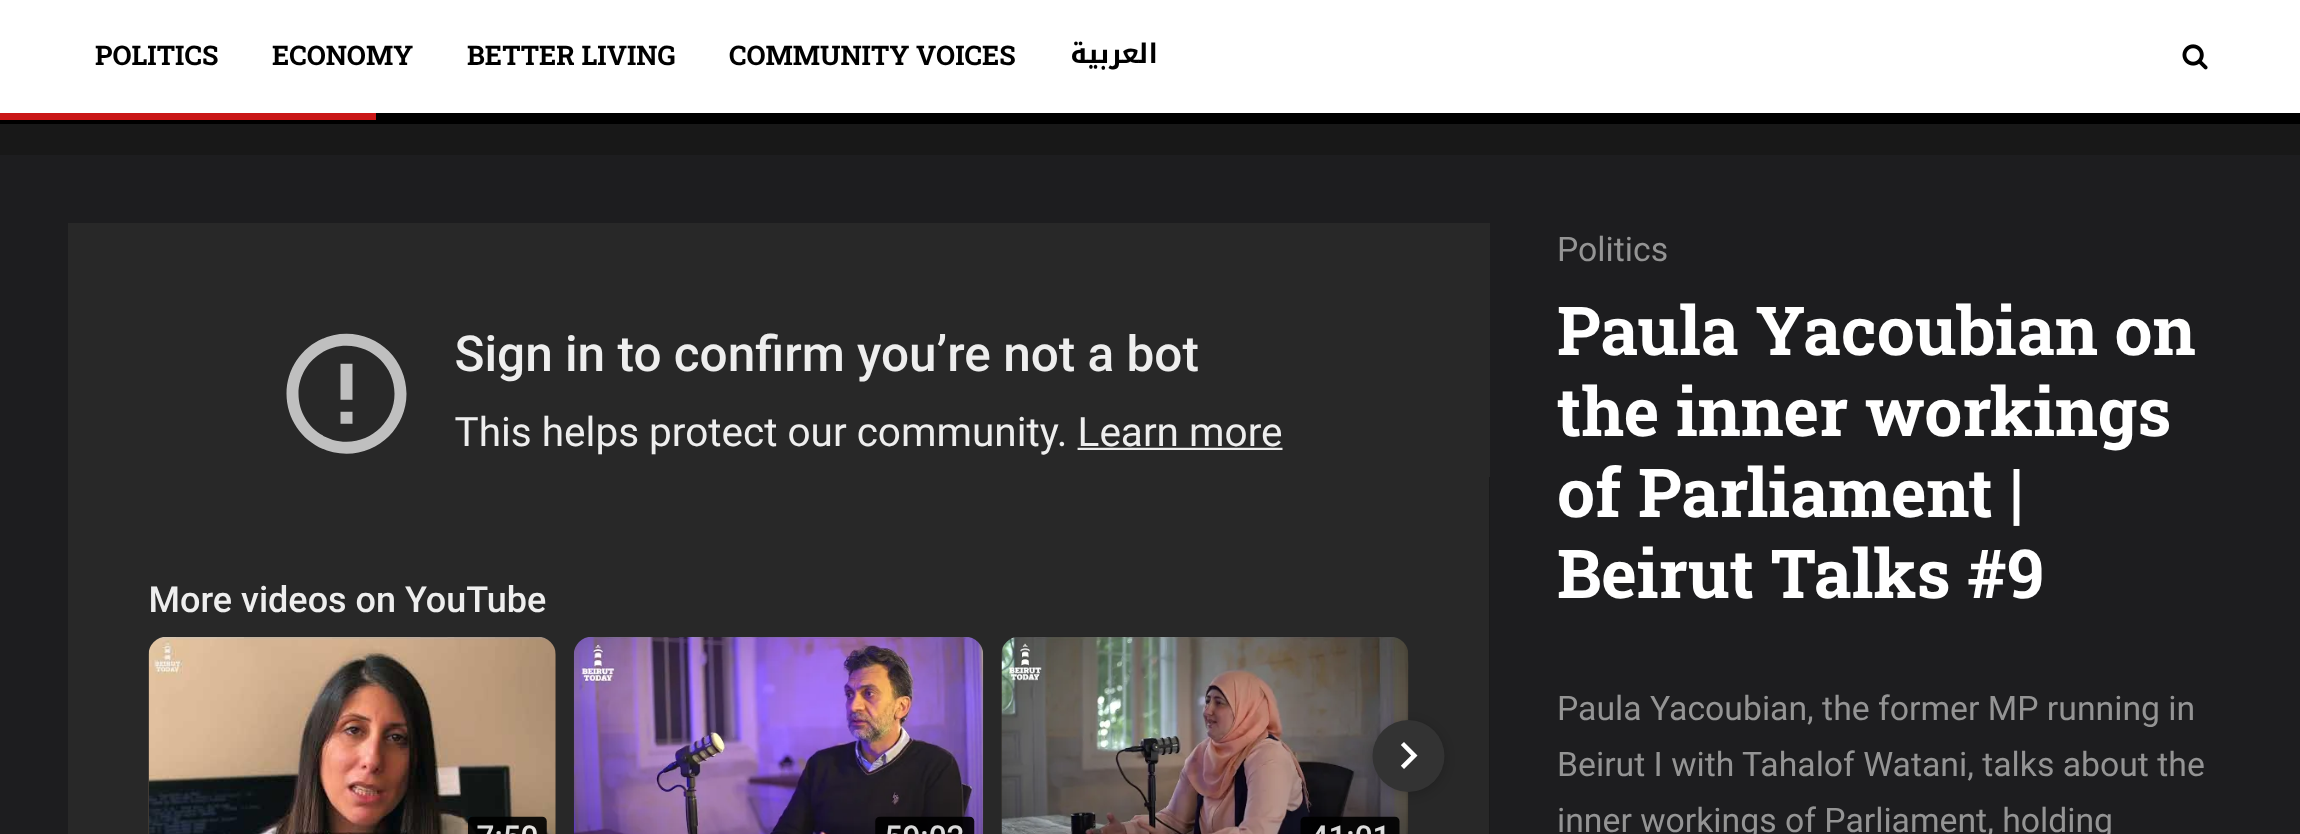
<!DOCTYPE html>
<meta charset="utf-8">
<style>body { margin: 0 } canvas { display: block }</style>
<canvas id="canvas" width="2300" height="834"></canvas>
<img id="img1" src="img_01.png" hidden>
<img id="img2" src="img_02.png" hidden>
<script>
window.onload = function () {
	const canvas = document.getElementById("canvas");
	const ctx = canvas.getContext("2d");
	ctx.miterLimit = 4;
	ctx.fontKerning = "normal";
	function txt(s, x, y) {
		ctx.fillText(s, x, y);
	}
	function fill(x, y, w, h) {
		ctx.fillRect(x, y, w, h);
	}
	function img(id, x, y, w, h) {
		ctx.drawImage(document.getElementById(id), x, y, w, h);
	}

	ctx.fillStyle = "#1D1D1F";
	fill(0, 0, 2300, 834);
	ctx.fillStyle = "#000000";
	fill(0, 113, 2300, 11);
	ctx.fillStyle = "#FFFFFF";
	fill(0, 0, 2300, 113);
	img("img1", 2182, 44, 26, 26);
	ctx.fillStyle = "#C91717";
	fill(0, 113, 376, 7);
	ctx.fillStyle = "#181818";
	fill(0, 124, 2300, 31);
	img("img2", 68, 223, 1422, 611);
	ctx.font = "bold 27px Roboto Slab";
	ctx.fillStyle = "#000000";
	txt("POLITICS", 95, 65);
	txt("ECONOMY", 272, 65);
	txt("BETTER LIVING", 467, 65);
	txt("COMMUNITY VOICES", 729, 65);
	ctx.direction = "rtl";
	ctx.font = "bold 27px Noto Kufi Arabic";
	txt("العربية", 1158, 63);
	ctx.direction = "ltr";
	ctx.font = "33.75px Roboto";
	ctx.fillStyle = "#949494";
	txt("Politics", 1557, 261);
	ctx.font = "bold 67.5px Roboto Slab";
	ctx.fillStyle = "#FFFFFF";
	txt("Paula Yacoubian on", 1557, 355);
	txt("the inner workings", 1557, 436);
	txt("of Parliament |", 1557, 517);
	txt("Beirut Talks #9", 1557, 598);
	ctx.font = "33.75px Roboto";
	ctx.fillStyle = "#949494";
	txt("Paula Yacoubian, the former MP running in", 1557, 720);
	txt("Beirut I with Tahalof Watani, talks about the", 1557, 776);
	txt("inner workings of Parliament, holding", 1557, 832);
};
</script>
